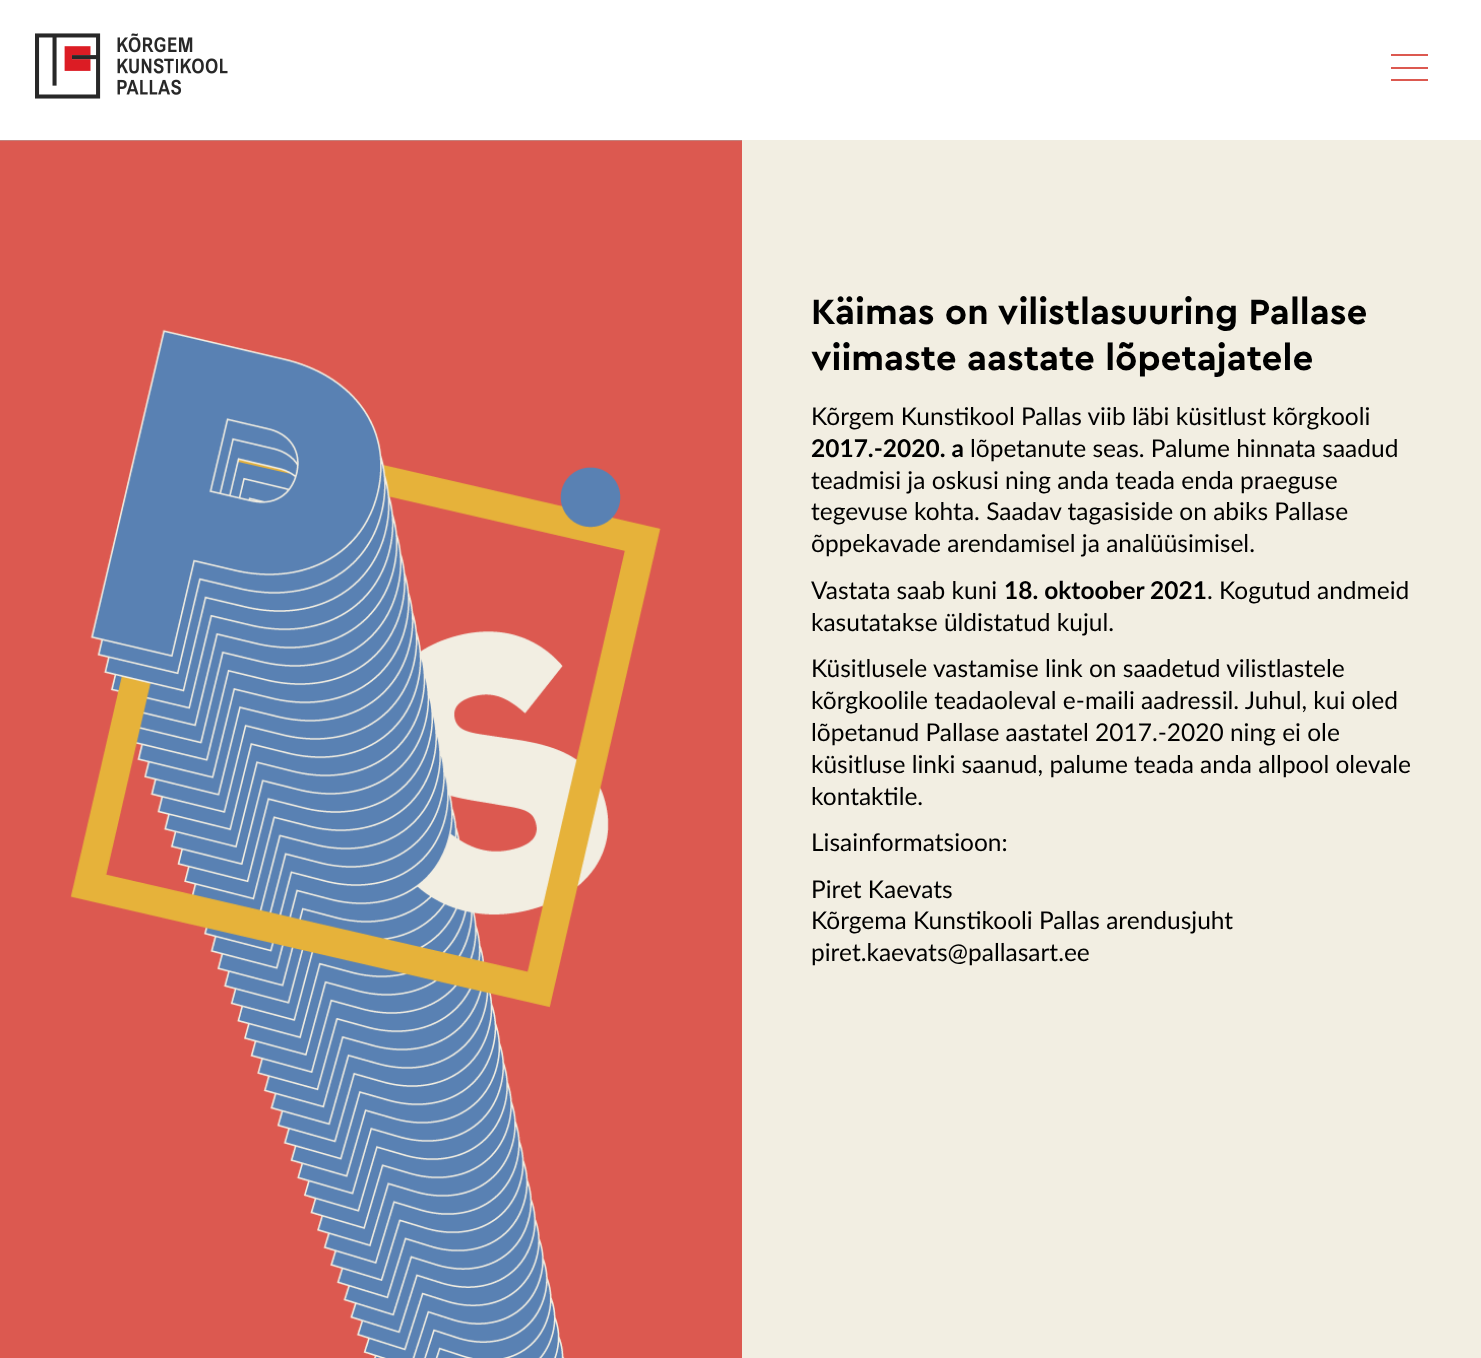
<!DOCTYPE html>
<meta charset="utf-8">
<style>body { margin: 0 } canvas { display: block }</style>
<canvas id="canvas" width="1481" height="1358"></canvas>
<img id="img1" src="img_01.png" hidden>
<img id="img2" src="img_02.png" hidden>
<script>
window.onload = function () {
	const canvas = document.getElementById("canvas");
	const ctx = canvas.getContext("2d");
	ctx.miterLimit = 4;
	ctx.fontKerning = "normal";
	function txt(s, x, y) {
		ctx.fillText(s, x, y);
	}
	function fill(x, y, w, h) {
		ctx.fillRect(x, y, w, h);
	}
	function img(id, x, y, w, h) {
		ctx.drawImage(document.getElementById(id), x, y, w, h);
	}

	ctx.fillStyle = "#AAAAAA";
	fill(0, 0, 1481, 1358);
	ctx.fillStyle = "#FFFFFF";
	fill(0, 0, 1481, 140);
	img("img1", 35, 33, 193, 66);
	ctx.fillStyle = "#DC5950";
	fill(1391, 54, 37, 2);
	fill(1391, 67, 37, 2);
	fill(1391, 79, 37, 2);
	img("img2", 0, 140, 742, 1218);
	ctx.fillStyle = "#F2EEE2";
	fill(742, 140, 739, 1218);
	ctx.font = "bold 36.75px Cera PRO";
	ctx.fillStyle = "#000000";
	txt("Käimas on vilistlasuuring Pallase", 811, 324);
	txt("viimaste aastate lõpetajatele", 811, 370);
	ctx.font = "24.5px Lato";
	txt("Kõrgem Kunstikool Pallas viib läbi küsitlust kõrgkooli", 811, 425);
	ctx.font = "bold 24.5px Lato";
	txt("2017.-2020. a", 811, 457);
	ctx.font = "24.5px Lato";
	txt("lõpetanute seas. Palume hinnata saadud", 970, 457);
	txt("teadmisi ja oskusi ning anda teada enda praeguse", 811, 489);
	txt("tegevuse kohta. Saadav tagasiside on abiks Pallase", 811, 520);
	txt("õppekavade arendamisel ja analüüsimisel.", 811, 552);
	txt("Vastata saab kuni", 811, 599);
	ctx.font = "bold 24.5px Lato";
	txt("18. oktoober 2021", 1004, 599);
	ctx.font = "24.5px Lato";
	txt(". Kogutud andmeid", 1207, 599);
	txt("kasutatakse üldistatud kujul.", 811, 631);
	txt("Küsitlusele vastamise link on saadetud vilistlastele", 811, 677);
	txt("kõrgkoolile teadaoleval e-maili aadressil. Juhul, kui oled", 811, 709);
	txt("lõpetanud Pallase aastatel 2017.-2020 ning ei ole", 811, 741);
	txt("küsitluse linki saanud, palume teada anda allpool olevale", 811, 773);
	txt("kontaktile.", 811, 805);
	txt("Lisainformatsioon:", 811, 851);
	txt("Piret Kaevats", 811, 898);
	txt("Kõrgema Kunstikooli Pallas arendusjuht", 811, 929);
	txt("piret.kaevats@pallasart.ee", 811, 961);
};
</script>
